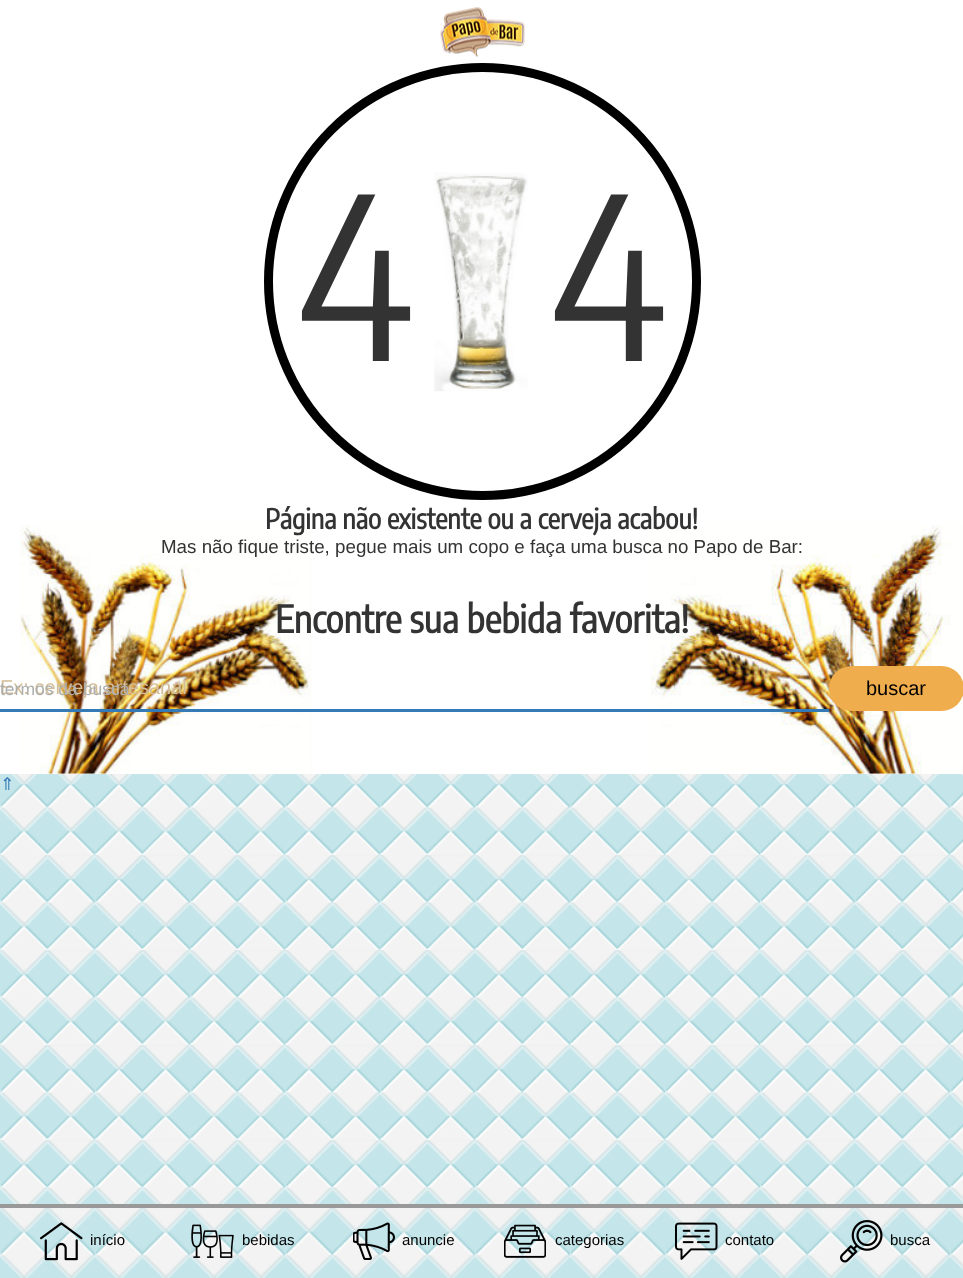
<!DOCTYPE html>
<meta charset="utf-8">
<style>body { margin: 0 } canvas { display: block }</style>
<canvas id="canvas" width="963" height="1278"></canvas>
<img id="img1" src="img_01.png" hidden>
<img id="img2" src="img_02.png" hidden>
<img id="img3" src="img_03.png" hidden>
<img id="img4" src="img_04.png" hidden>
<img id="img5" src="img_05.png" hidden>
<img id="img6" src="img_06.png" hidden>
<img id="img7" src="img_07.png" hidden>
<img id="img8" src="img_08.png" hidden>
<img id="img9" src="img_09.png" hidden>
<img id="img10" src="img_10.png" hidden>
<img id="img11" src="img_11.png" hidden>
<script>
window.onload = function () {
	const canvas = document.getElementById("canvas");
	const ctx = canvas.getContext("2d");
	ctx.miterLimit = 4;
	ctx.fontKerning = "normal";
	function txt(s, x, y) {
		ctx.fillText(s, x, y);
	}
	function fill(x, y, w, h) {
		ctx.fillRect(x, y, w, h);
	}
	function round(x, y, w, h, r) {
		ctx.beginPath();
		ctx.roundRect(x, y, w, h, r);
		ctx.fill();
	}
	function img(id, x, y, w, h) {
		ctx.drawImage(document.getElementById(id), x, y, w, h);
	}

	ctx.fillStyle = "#FFFFFF";
	fill(0, 0, 963, 1278);
	img("img1", 0, 774, 963, 430);
	img("img2", 20, 525, 943, 249);
	img("img3", 434, 172, 94, 220);
	ctx.beginPath();
	ctx.arc(482.5, 281.5, 214, 0, Math.PI * 2);
	ctx.strokeStyle = "#000000";
	ctx.lineWidth = 9;
	ctx.stroke();
	ctx.fillStyle = "#337AB7";
	fill(0, 709, 829, 3);
	ctx.fillStyle = "#F0AD4E";
	round(829, 666, 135, 45, 22.5);
	img("img4", 440, 7, 85, 50);
	img("img5", 0, 1208, 963, 70);
	ctx.fillStyle = "#999999";
	fill(0, 1204, 963, 4);
	img("img6", 40, 1222, 43, 39);
	img("img7", 191, 1224, 43, 34);
	img("img8", 353, 1222, 42, 38);
	img("img9", 504, 1224, 42, 34);
	img("img10", 675, 1222, 43, 38);
	img("img11", 840, 1220, 43, 43);
	ctx.font = "225px Encode Sans Condensed";
	ctx.fillStyle = "#333333";
	txt("4", 297, 361);
	txt("4", 550, 361);
	ctx.font = "bold 27.5px Encode Sans Condensed";
	txt("Página não existente ou a cerveja acabou!", 265, 529);
	ctx.font = "18.75px Liberation Sans";
	txt("Mas não fique triste, pegue mais um copo e faça uma busca no Papo de Bar:", 161, 553);
	ctx.font = "bold 37.5px Encode Sans Condensed";
	txt("Encontre sua bebida favorita!", 275, 633);
	ctx.font = "20px Liberation Sans";
	ctx.fillStyle = "#D4BD98";
	txt("Ex: cerveja artesanal", 0, 694);
	ctx.font = "17.5px Liberation Sans";
	ctx.fillStyle = "#ADAFAF";
	txt("termos da busca", 0, 695);
	ctx.font = "20px Liberation Sans";
	ctx.fillStyle = "#000000";
	txt("buscar", 866, 695);
	ctx.font = "17.5px DejaVu Sans";
	ctx.fillStyle = "#337AB7";
	txt("⇑", 0, 790);
	ctx.font = "15px Liberation Sans";
	ctx.fillStyle = "#000000";
	txt("início", 90, 1245);
	txt("bebidas", 242, 1245);
	txt("anuncie", 402, 1245);
	txt("categorias", 555, 1245);
	txt("contato", 725, 1245);
	txt("busca", 890, 1245);
};
</script>
